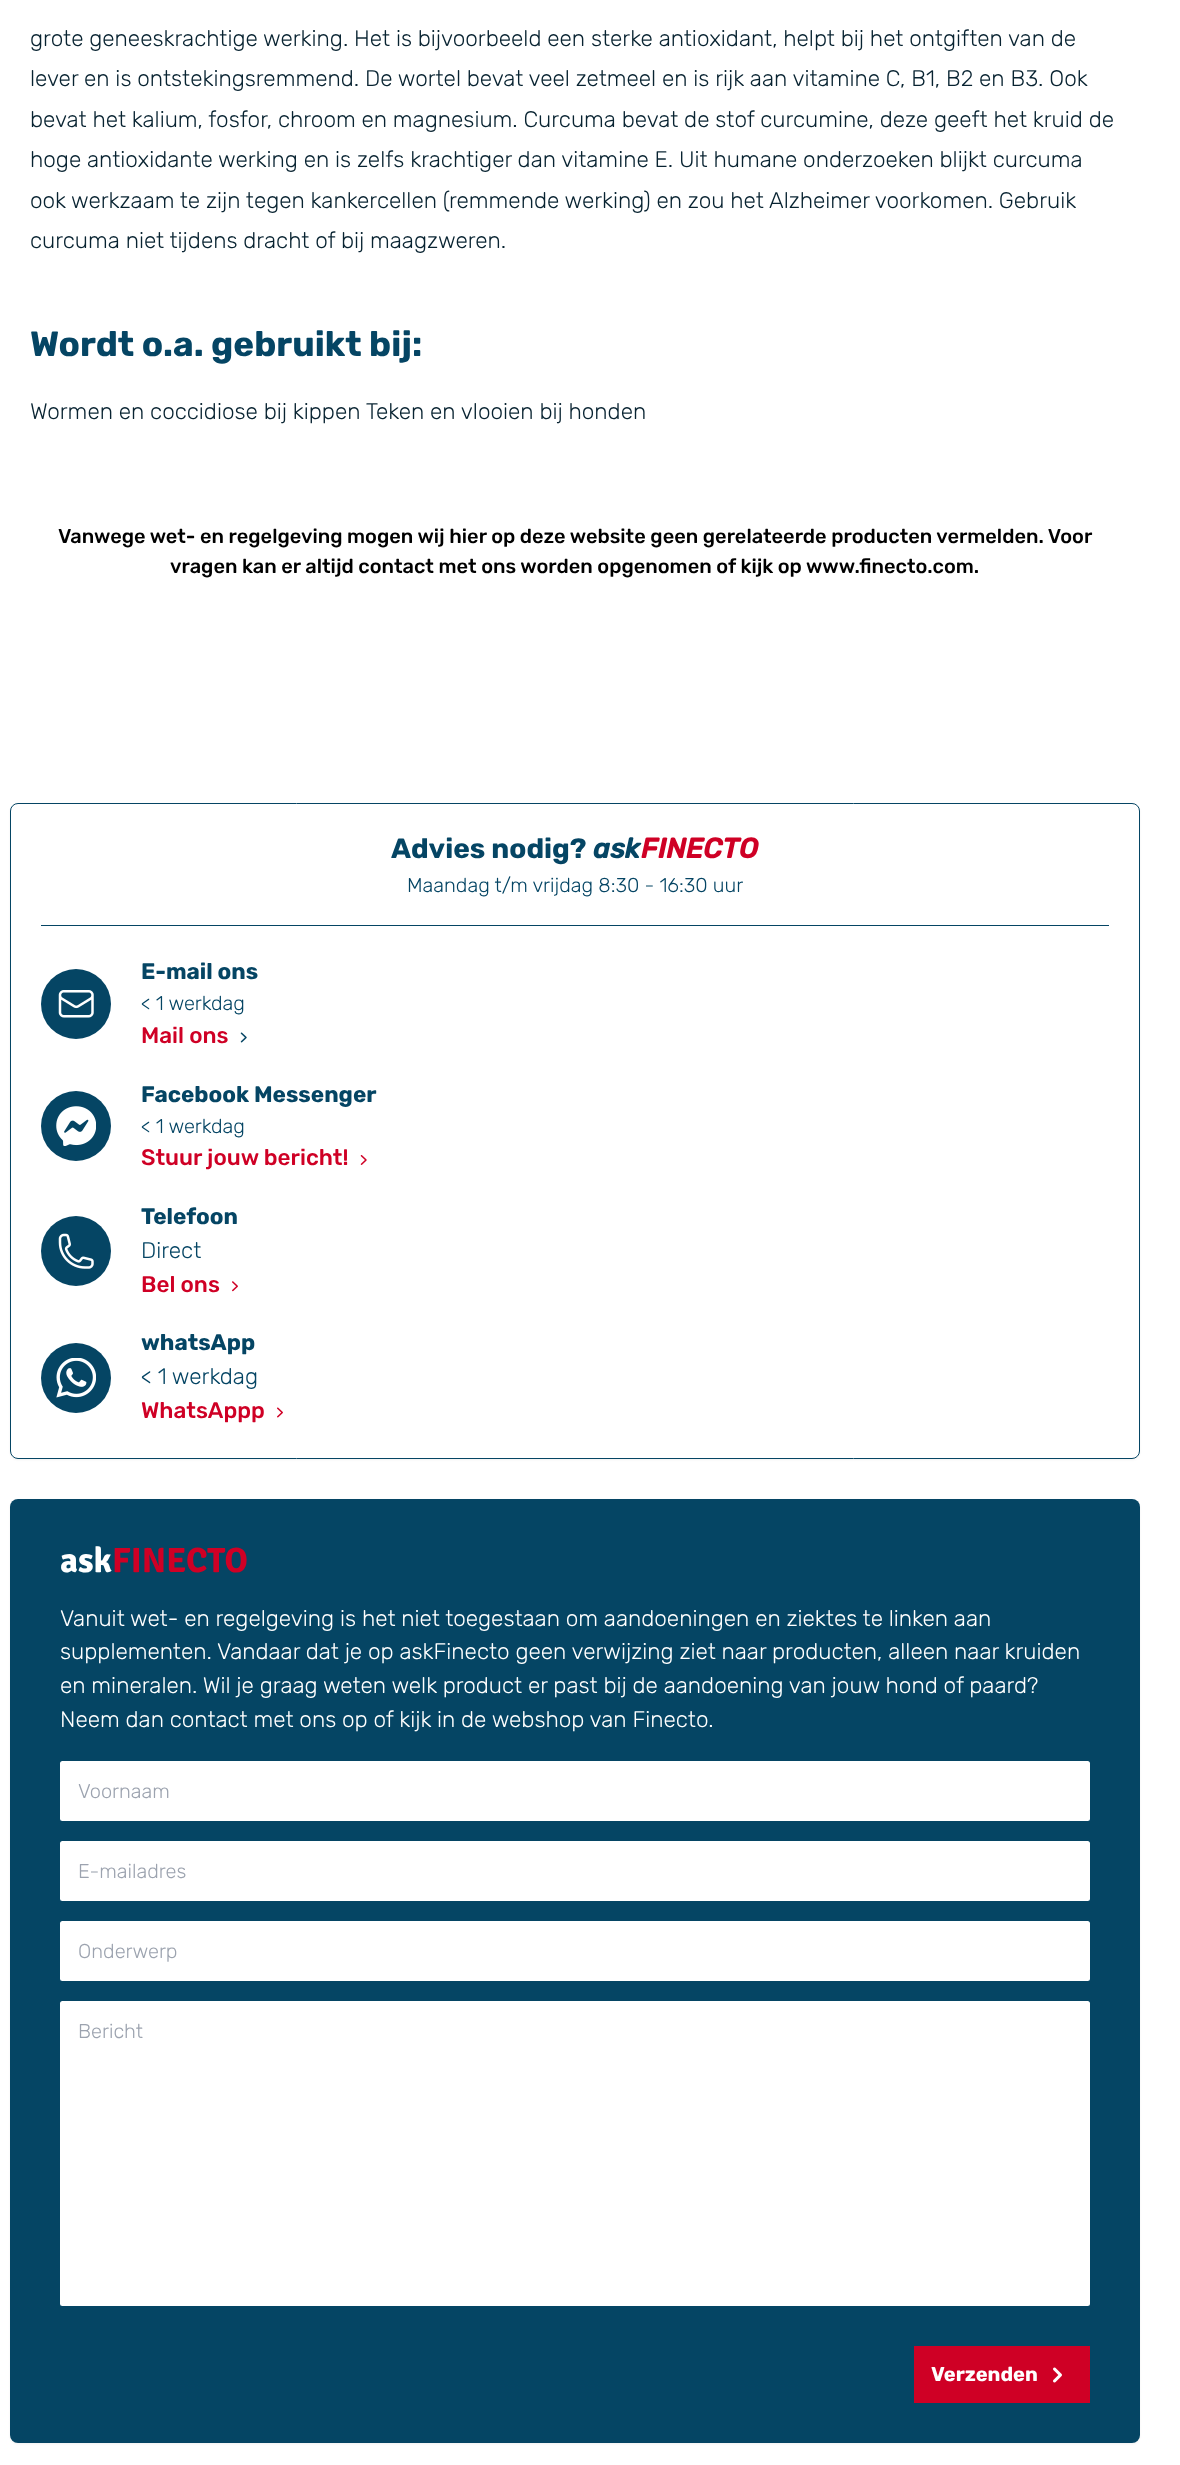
<!DOCTYPE html>
<meta charset="utf-8">
<style>body { margin: 0 } canvas { display: block }</style>
<canvas id="canvas" width="1180" height="2465"></canvas>
<img id="img1" src="img_01.png" hidden>
<img id="img2" src="img_02.png" hidden>
<img id="img3" src="img_03.png" hidden>
<img id="img4" src="img_04.png" hidden>
<img id="img5" src="img_05.png" hidden>
<img id="img6" src="img_06.png" hidden>
<img id="img7" src="img_07.png" hidden>
<img id="img8" src="img_08.png" hidden>
<img id="img9" src="img_09.png" hidden>
<script>
window.onload = function () {
	const canvas = document.getElementById("canvas");
	const ctx = canvas.getContext("2d");
	ctx.miterLimit = 4;
	ctx.fontKerning = "normal";
	function txt(s, x, y) {
		ctx.fillText(s, x, y);
	}
	function fill(x, y, w, h) {
		ctx.fillRect(x, y, w, h);
	}
	function round(x, y, w, h, r) {
		ctx.beginPath();
		ctx.roundRect(x, y, w, h, r);
		ctx.fill();
	}
	function img(id, x, y, w, h) {
		ctx.drawImage(document.getElementById(id), x, y, w, h);
	}

	ctx.fillStyle = "#FFFFFF";
	fill(0, 0, 1180, 2465);
	ctx.fillStyle = "rgba(0, 0, 0, 0.05)";
	ctx.filter = "blur(1px)";
	ctx.beginPath();
	ctx.roundRect(10, 804, 1130, 656, 8);
	ctx.fill();
	ctx.filter = "none";
	ctx.fillStyle = "#FFFFFF";
	ctx.beginPath();
	ctx.roundRect(10.5, 803.5, 1129, 655, 7.5);
	ctx.fill();
	ctx.strokeStyle = "#054564";
	ctx.stroke();
	ctx.fillStyle = "#054564";
	fill(41, 925, 1068, 1);
	ctx.beginPath();
	ctx.arc(76, 1004, 35, 0, Math.PI * 2);
	ctx.fill();
	img("img1", 58, 990, 36, 28);
	img("img2", 240, 1032, 7, 11);
	ctx.beginPath();
	ctx.arc(76, 1126, 35, 0, Math.PI * 2);
	ctx.fill();
	img("img3", 56, 1106, 40, 40);
	img("img4", 360, 1155, 7, 10);
	ctx.beginPath();
	ctx.arc(76, 1251, 35, 0, Math.PI * 2);
	ctx.fill();
	img("img5", 58, 1233, 36, 36);
	img("img6", 232, 1281, 6, 11);
	ctx.beginPath();
	ctx.arc(76, 1378, 35, 0, Math.PI * 2);
	ctx.fill();
	img("img7", 56, 1358, 40, 40);
	img("img8", 277, 1407, 6, 11);
	ctx.fillStyle = "rgba(0, 0, 0, 0.05)";
	ctx.filter = "blur(1px)";
	ctx.beginPath();
	ctx.roundRect(10, 1500, 1130, 944, 8);
	ctx.fill();
	ctx.filter = "none";
	ctx.fillStyle = "#054564";
	round(10, 1499, 1130, 944, 8);
	ctx.fillStyle = "#FFFFFF";
	round(60, 1761, 1030, 60, 2.5);
	round(60, 1841, 1030, 60, 2.5);
	round(60, 1921, 1030, 60, 2.5);
	round(60, 2001, 1030, 305, 2.5);
	ctx.fillStyle = "#CF0025";
	fill(914, 2346, 176, 57);
	img("img9", 1053, 2367, 9, 16);
	ctx.font = "300 22.5px Rubik";
	ctx.fillStyle = "#082331";
	txt("grote geneeskrachtige werking. Het is bijvoorbeeld een sterke antioxidant, helpt bij het ontgiften van de", 30, 46);
	txt("lever en is ontstekingsremmend. De wortel bevat veel zetmeel en is rijk aan vitamine C, B1, B2 en B3. Ook", 30, 86);
	txt("bevat het kalium, fosfor, chroom en magnesium. Curcuma bevat de stof curcumine, deze geeft het kruid de", 30, 127);
	txt("hoge antioxidante werking en is zelfs krachtiger dan vitamine E. Uit humane onderzoeken blijkt curcuma", 30, 167);
	txt("ook werkzaam te zijn tegen kankercellen (remmende werking) en zou het Alzheimer voorkomen. Gebruik", 30, 208);
	txt("curcuma niet tijdens dracht of bij maagzweren.", 30, 248);
	ctx.font = "300 35.1px 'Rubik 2'";
	ctx.fillStyle = "#054564";
	txt("Wordt o.a. gebruikt bij:", 30, 356);
	ctx.font = "300 22.5px Rubik";
	ctx.fillStyle = "#082331";
	txt("Wormen en coccidiose bij kippen Teken en vlooien bij honden", 30, 419);
	ctx.font = "300 20px 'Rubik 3'";
	ctx.fillStyle = "#000000";
	txt("Vanwege wet- en regelgeving mogen wij hier op deze website geen gerelateerde producten vermelden. Voor", 58, 543);
	txt("vragen kan er altijd contact met ons worden opgenomen of kijk op www.finecto.com.", 170, 573);
	ctx.font = "300 28px 'Rubik 2'";
	ctx.fillStyle = "#054564";
	txt("Advies nodig?", 391, 858);
	ctx.font = "italic bold 28px Rubik";
	txt("ask", 593, 858);
	ctx.fillStyle = "#CF0025";
	txt("FINECTO", 641, 858);
	ctx.font = "300 20px Rubik";
	ctx.fillStyle = "#054564";
	txt("Maandag t/m vrijdag 8:30 - 16:30 uur", 407, 892);
	ctx.font = "300 22.5px 'Rubik 2'";
	txt("E-mail ons", 141, 979);
	ctx.font = "300 20px Rubik";
	txt("< 1 werkdag", 141, 1010);
	ctx.font = "300 22.5px 'Rubik 3'";
	ctx.fillStyle = "#CF0025";
	txt("Mail ons", 141, 1043);
	ctx.font = "300 22.5px 'Rubik 2'";
	ctx.fillStyle = "#054564";
	txt("Facebook Messenger", 141, 1102);
	ctx.font = "300 20px Rubik";
	txt("< 1 werkdag", 141, 1133);
	ctx.font = "300 22.5px 'Rubik 3'";
	ctx.fillStyle = "#CF0025";
	txt("Stuur jouw bericht!", 141, 1165);
	ctx.font = "300 22.5px 'Rubik 2'";
	ctx.fillStyle = "#054564";
	txt("Telefoon", 141, 1224);
	ctx.font = "300 22.5px Rubik";
	txt("Direct", 141, 1258);
	ctx.font = "300 22.5px 'Rubik 3'";
	ctx.fillStyle = "#CF0025";
	txt("Bel ons", 141, 1292);
	ctx.font = "300 22.5px 'Rubik 2'";
	ctx.fillStyle = "#054564";
	txt("whatsApp", 141, 1350);
	ctx.font = "300 22.5px Rubik";
	txt("< 1 werkdag", 141, 1384);
	ctx.font = "300 22.5px 'Rubik 3'";
	ctx.fillStyle = "#CF0025";
	txt("WhatsAppp", 141, 1418);
	ctx.font = "300 35.1px Signika";
	ctx.fillStyle = "#FFFFFF";
	txt("ask", 60, 1572);
	ctx.fillStyle = "#CF0025";
	txt("FINECTO", 112, 1572);
	ctx.font = "300 22.5px Rubik";
	ctx.fillStyle = "#FFFFFF";
	txt("Vanuit wet- en regelgeving is het niet toegestaan om aandoeningen en ziektes te linken aan", 60, 1626);
	txt("supplementen. Vandaar dat je op askFinecto geen verwijzing ziet naar producten, alleen naar kruiden", 60, 1659);
	txt("en mineralen. Wil je graag weten welk product er past bij de aandoening van jouw hond of paard?", 60, 1693);
	txt("Neem dan contact met ons op of kijk in de webshop van Finecto.", 60, 1727);
	ctx.font = "300 20px Rubik";
	ctx.fillStyle = "#9CA3AF";
	txt("Voornaam", 78, 1798);
	txt("E-mailadres", 78, 1878);
	txt("Onderwerp", 78, 1958);
	txt("Bericht", 78, 2038);
	ctx.font = "300 20px 'Rubik 2'";
	ctx.fillStyle = "#FFFFFF";
	txt("Verzenden", 931, 2381);
};
</script>
